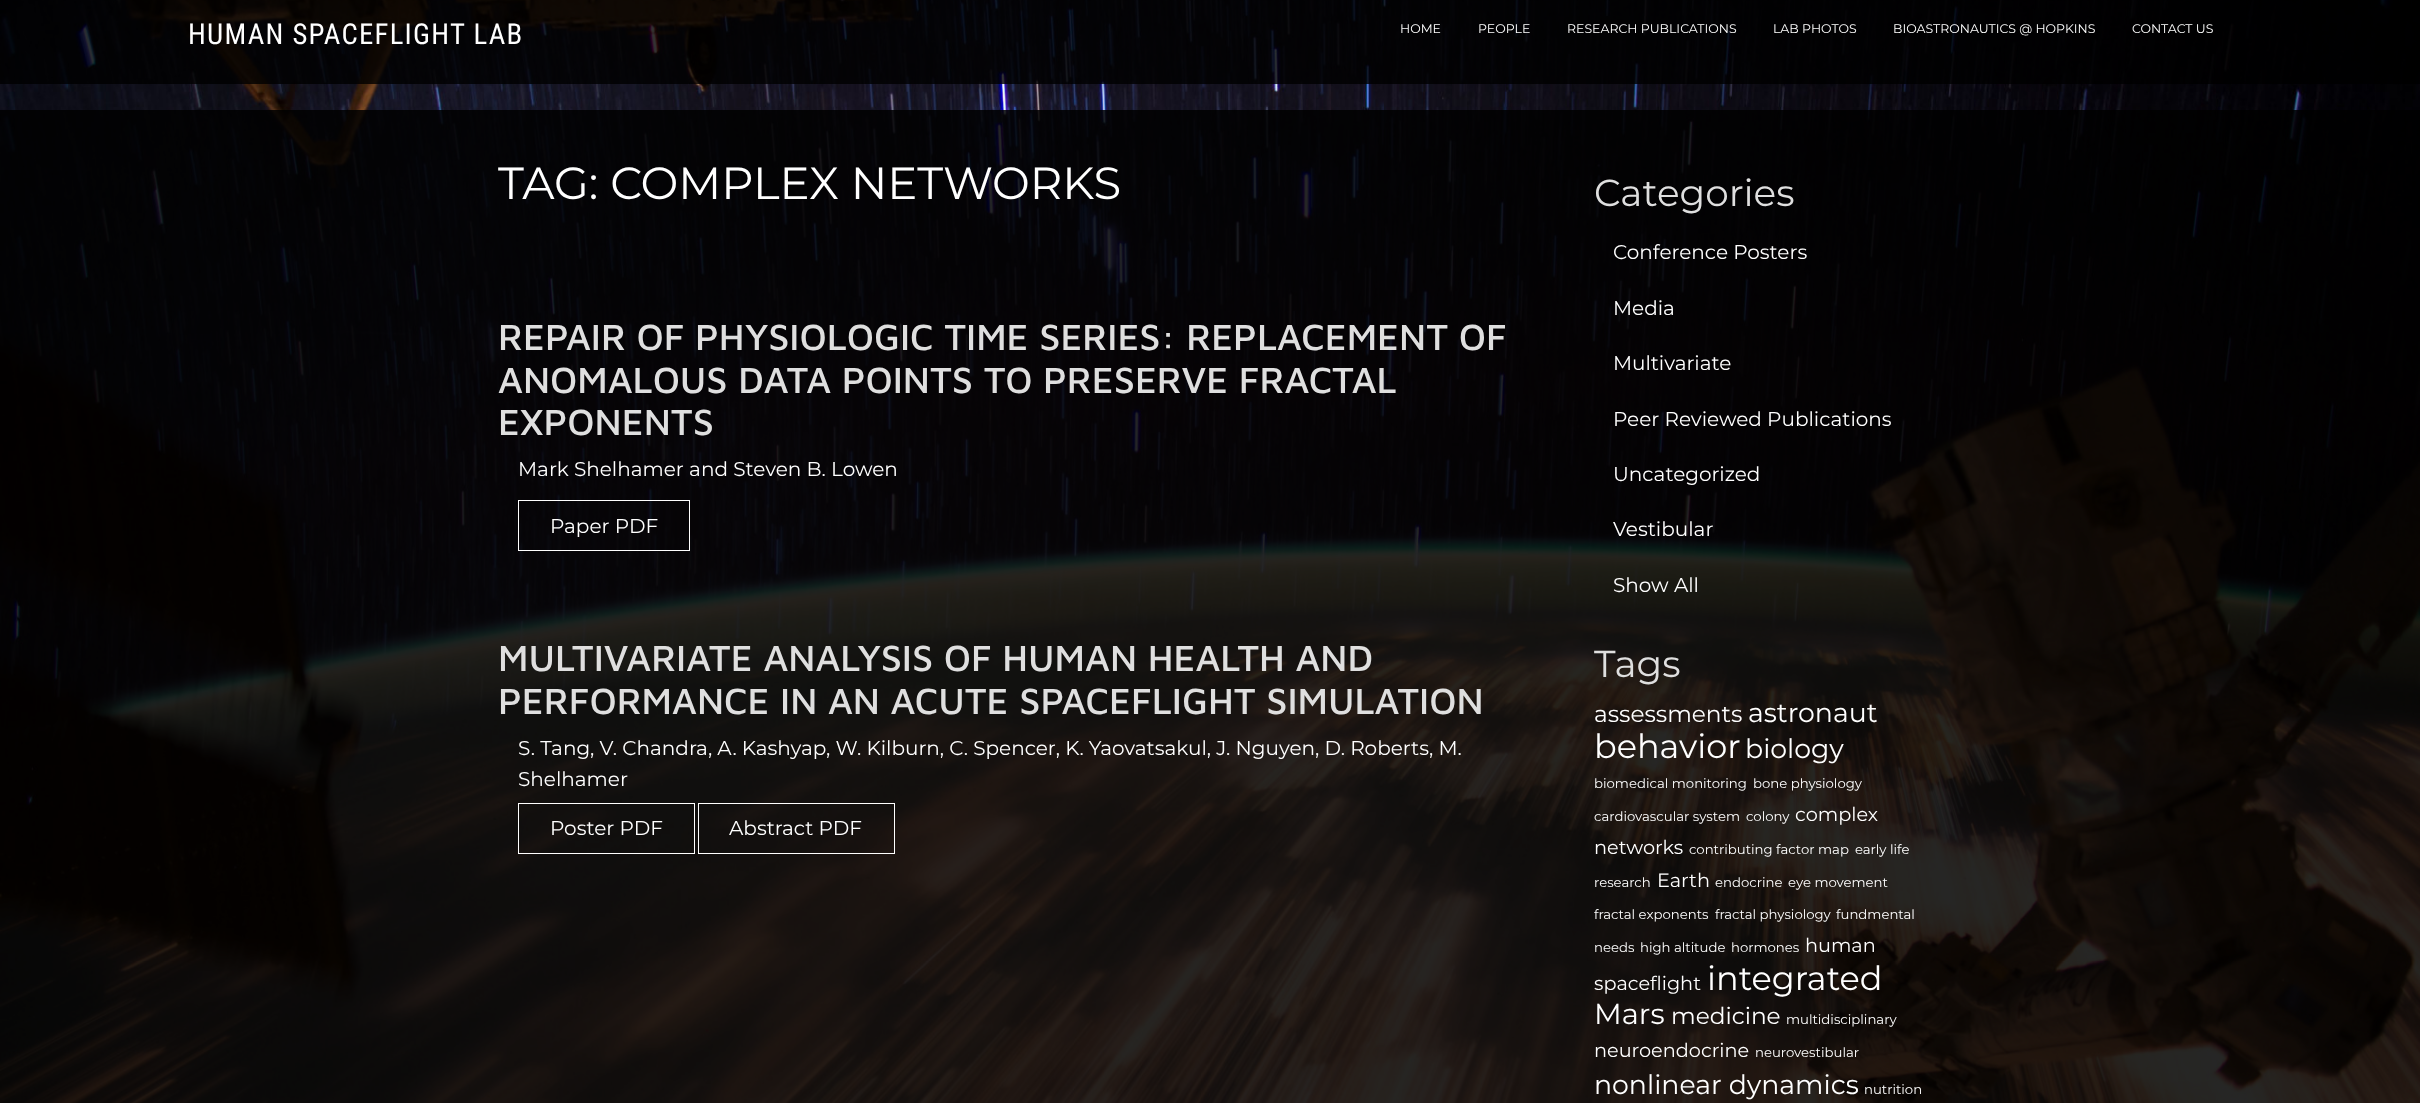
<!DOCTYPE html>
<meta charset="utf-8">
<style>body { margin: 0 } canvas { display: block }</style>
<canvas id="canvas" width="2420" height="1103"></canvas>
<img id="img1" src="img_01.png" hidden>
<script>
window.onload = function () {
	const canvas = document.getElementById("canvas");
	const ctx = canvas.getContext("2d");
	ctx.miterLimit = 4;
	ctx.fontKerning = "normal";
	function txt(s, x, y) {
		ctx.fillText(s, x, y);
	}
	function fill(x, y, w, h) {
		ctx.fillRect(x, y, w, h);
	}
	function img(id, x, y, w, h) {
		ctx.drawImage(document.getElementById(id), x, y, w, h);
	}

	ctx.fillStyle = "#FFFFFF";
	fill(0, 0, 2420, 1103);
	img("img1", 0, 0, 2420, 1103);
	ctx.fillStyle = "rgba(0, 0, 0, 0.8)";
	fill(0, 0, 2420, 84);
	ctx.strokeStyle = "#FFFFFF";
	ctx.strokeRect(518.5, 500.5, 171, 50);
	ctx.strokeRect(518.5, 803.5, 176, 50);
	ctx.strokeRect(698.5, 803.5, 196, 50);
	ctx.letterSpacing = "1.25px";
	ctx.font = "28.75px Roboto Condensed";
	ctx.fillStyle = "#FFFFFF";
	txt("HUMAN SPACEFLIGHT LAB", 188, 44);
	ctx.letterSpacing = "0px";
	ctx.font = "100 12.5px Montserrat";
	txt("HOME", 1400, 33);
	txt("PEOPLE", 1478, 33);
	txt("RESEARCH PUBLICATIONS", 1567, 33);
	txt("LAB PHOTOS", 1773, 33);
	txt("BIOASTRONAUTICS @ HOPKINS", 1893, 33);
	txt("CONTACT US", 2132, 33);
	ctx.font = "100 45px Montserrat";
	txt("TAG: COMPLEX NETWORKS", 498, 199);
	ctx.font = "500 37.5px Maven Pro";
	ctx.fillStyle = "#DFDFDF";
	txt("REPAIR OF PHYSIOLOGIC TIME SERIES: REPLACEMENT OF", 498, 350);
	txt("ANOMALOUS DATA POINTS TO PRESERVE FRACTAL", 498, 393);
	txt("EXPONENTS", 498, 435);
	ctx.font = "100 20px Montserrat";
	ctx.fillStyle = "#FFFFFF";
	txt("Mark Shelhamer and Steven B. Lowen", 518, 476);
	txt("Paper PDF", 550, 533);
	ctx.font = "500 37.5px Maven Pro";
	ctx.fillStyle = "#DFDFDF";
	txt("MULTIVARIATE ANALYSIS OF HUMAN HEALTH AND", 498, 671);
	txt("PERFORMANCE IN AN ACUTE SPACEFLIGHT SIMULATION", 498, 714);
	ctx.font = "100 20px Montserrat";
	ctx.fillStyle = "#FFFFFF";
	txt("S. Tang, V. Chandra, A. Kashyap, W. Kilburn, C. Spencer, K. Yaovatsakul, J. Nguyen, D. Roberts, M.", 518, 755);
	txt("Shelhamer", 518, 786);
	txt("Poster PDF", 550, 835);
	txt("Abstract PDF", 729, 835);
	ctx.font = "100 37.5px Montserrat";
	ctx.fillStyle = "#DFDFDF";
	txt("Categories", 1594, 206);
	ctx.font = "100 20px Montserrat";
	ctx.fillStyle = "#FFFFFF";
	txt("Conference Posters", 1613, 259);
	txt("Media", 1613, 315);
	txt("Multivariate", 1613, 370);
	txt("Peer Reviewed Publications", 1613, 426);
	txt("Uncategorized", 1613, 481);
	txt("Vestibular", 1613, 536);
	txt("Show All", 1613, 592);
	ctx.font = "100 37.5px Montserrat";
	ctx.fillStyle = "#DFDFDF";
	txt("Tags", 1594, 677);
	ctx.font = "100 23.25px Montserrat";
	ctx.fillStyle = "#FFFFFF";
	txt("assessments", 1594, 722);
	ctx.font = "100 26.75px Montserrat";
	txt("astronaut", 1748, 722);
	ctx.font = "100 33.5px Montserrat";
	txt("behavior", 1594, 758);
	ctx.font = "100 26.75px Montserrat";
	txt("biology", 1745, 758);
	ctx.font = "100 13.25px Montserrat";
	txt("biomedical monitoring", 1594, 788);
	txt("bone physiology", 1753, 788);
	txt("cardiovascular system", 1594, 821);
	txt("colony", 1746, 821);
	ctx.font = "100 19.25px Montserrat";
	txt("complex", 1795, 821);
	txt("networks", 1594, 854);
	ctx.font = "100 13.25px Montserrat";
	txt("contributing factor map", 1689, 854);
	txt("early life", 1855, 854);
	txt("research", 1594, 887);
	ctx.font = "100 19.25px Montserrat";
	txt("Earth", 1657, 887);
	ctx.font = "100 13.25px Montserrat";
	txt("endocrine", 1715, 887);
	txt("eye movement", 1788, 887);
	txt("fractal exponents", 1594, 919);
	txt("fractal physiology", 1715, 919);
	txt("fundmental", 1836, 919);
	txt("needs", 1594, 952);
	txt("high altitude", 1640, 952);
	txt("hormones", 1731, 952);
	ctx.font = "100 19.25px Montserrat";
	txt("human", 1805, 952);
	txt("spaceflight", 1594, 990);
	ctx.font = "100 33.5px Montserrat";
	txt("integrated", 1707, 990);
	ctx.font = "100 29px Montserrat";
	txt("Mars", 1594, 1024);
	ctx.font = "100 23.25px Montserrat";
	txt("medicine", 1671, 1024);
	ctx.font = "100 13.25px Montserrat";
	txt("multidisciplinary", 1786, 1024);
	ctx.font = "100 19.25px Montserrat";
	txt("neuroendocrine", 1594, 1057);
	ctx.font = "100 13.25px Montserrat";
	txt("neurovestibular", 1755, 1057);
	ctx.font = "100 26.75px Montserrat";
	txt("nonlinear dynamics", 1594, 1094);
	ctx.font = "100 13.25px Montserrat";
	txt("nutrition", 1864, 1094);
};
</script>
